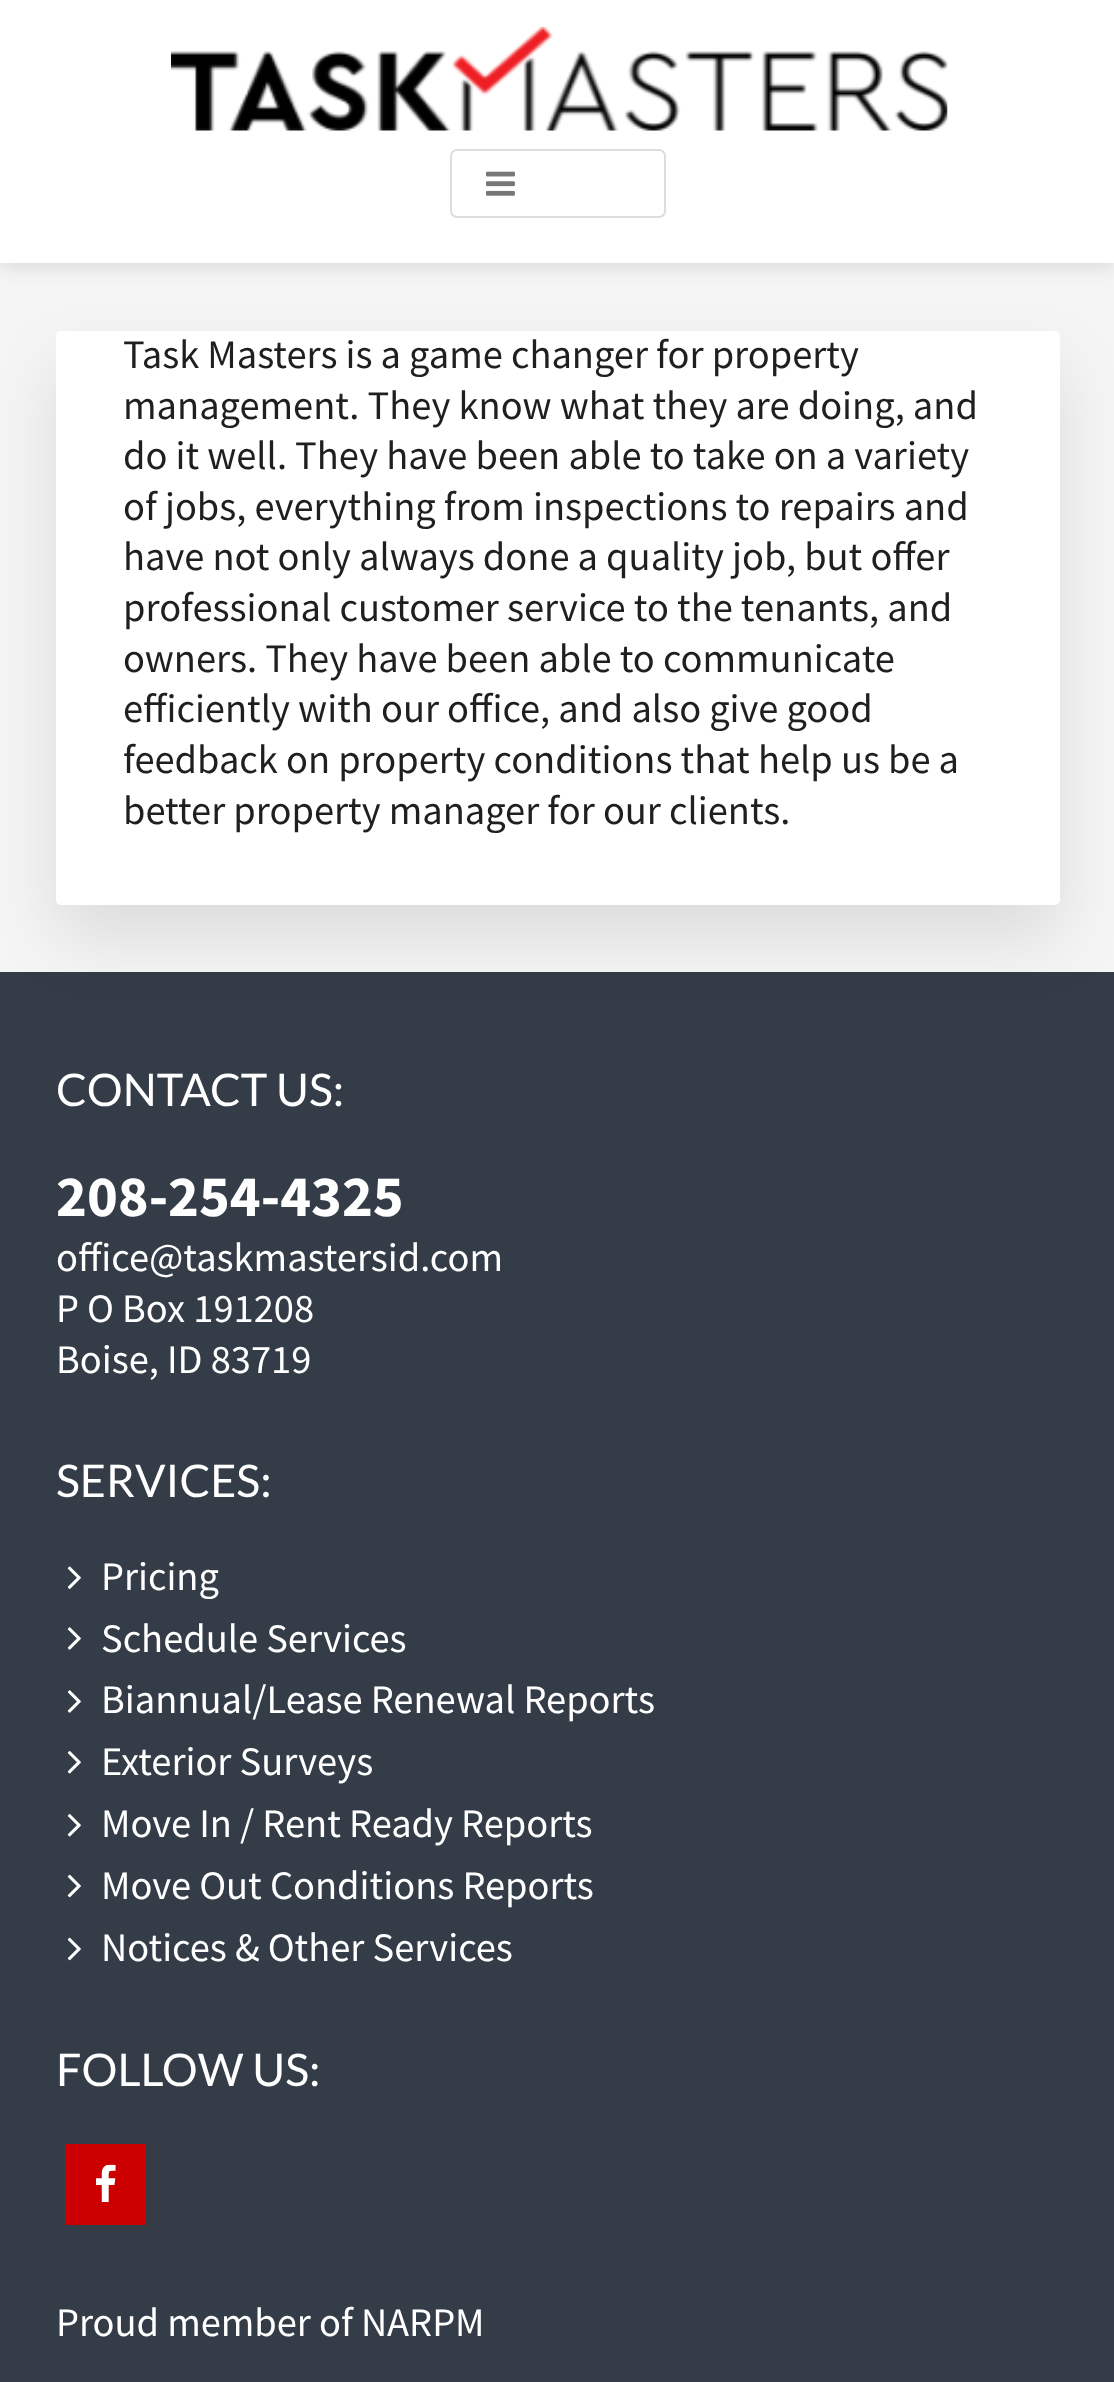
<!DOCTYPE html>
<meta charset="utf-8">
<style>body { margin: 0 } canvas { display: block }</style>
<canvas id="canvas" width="1114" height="2382"></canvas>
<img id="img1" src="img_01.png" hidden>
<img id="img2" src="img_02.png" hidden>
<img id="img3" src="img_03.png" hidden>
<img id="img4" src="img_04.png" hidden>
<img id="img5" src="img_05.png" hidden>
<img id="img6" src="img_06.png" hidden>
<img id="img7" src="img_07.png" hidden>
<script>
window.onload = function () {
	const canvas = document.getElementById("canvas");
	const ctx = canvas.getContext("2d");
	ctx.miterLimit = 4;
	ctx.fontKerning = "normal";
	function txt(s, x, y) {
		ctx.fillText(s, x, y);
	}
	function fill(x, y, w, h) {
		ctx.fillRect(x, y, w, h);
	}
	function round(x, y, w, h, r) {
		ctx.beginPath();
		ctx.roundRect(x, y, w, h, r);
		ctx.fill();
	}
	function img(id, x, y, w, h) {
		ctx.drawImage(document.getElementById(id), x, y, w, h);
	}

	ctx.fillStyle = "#F5F5F5";
	fill(0, 0, 1114, 2382);
	ctx.fillStyle = "rgba(0, 0, 0, 0.1)";
	ctx.filter = "blur(9px)";
	ctx.beginPath();
	ctx.rect(0, 5, 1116, 263);
	ctx.fill();
	ctx.filter = "none";
	ctx.fillStyle = "#FFFFFF";
	fill(0, 0, 1114, 263);
	img("img1", 171, 27, 777, 104);
	ctx.beginPath();
	ctx.roundRect(451, 150, 214, 67, 6);
	ctx.strokeStyle = "#DDDDDD";
	ctx.lineWidth = 2;
	ctx.stroke();
	img("img2", 486, 171, 29, 25);
	ctx.fillStyle = "#333C47";
	fill(0, 972, 1114, 1410);
	ctx.fillStyle = "rgba(0, 0, 0, 0.1)";
	ctx.filter = "blur(34px)";
	ctx.beginPath();
	ctx.roundRect(56, 365, 1004, 573, 5);
	ctx.fill();
	ctx.filter = "none";
	ctx.fillStyle = "#FFFFFF";
	round(56, 331, 1004, 574, 5);
	img("img3", 67, 1566, 14, 23);
	img("img4", 67, 1627, 14, 23);
	img("img4", 67, 1690, 14, 23);
	img("img5", 67, 1751, 14, 23);
	img("img5", 67, 1814, 14, 23);
	img("img6", 67, 1874, 14, 24);
	img("img6", 67, 1937, 14, 24);
	ctx.fillStyle = "#CC0000";
	fill(65, 2144, 81, 81);
	img("img7", 96, 2164, 20, 38);
	ctx.font = "40.5px Source Sans Pro";
	ctx.fillStyle = "#1F1F1F";
	txt("Task Masters is a game changer for property", 123, 368);
	txt("management. They know what they are doing, and", 123, 419);
	txt("do it well. They have been able to take on a variety", 123, 469);
	txt("of jobs, everything from inspections to repairs and", 123, 520);
	txt("have not only always done a quality job, but offer", 123, 570);
	txt("professional customer service to the tenants, and", 123, 621);
	txt("owners. They have been able to communicate", 123, 672);
	txt("efficiently with our office, and also give good", 123, 722);
	txt("feedback on property conditions that help us be a", 123, 773);
	txt("better property manager for our clients.", 123, 824);
	ctx.font = "45px Lato";
	ctx.fillStyle = "#FFFFFF";
	txt("CONTACT US:", 56, 1106);
	ctx.font = "bold 58.5px Source Sans Pro";
	txt("208-254-4325", 56, 1216);
	ctx.font = "40.5px Source Sans Pro";
	txt("office@taskmastersid.com", 56, 1271);
	txt("P O Box 191208", 56, 1322);
	txt("Boise, ID 83719", 56, 1373);
	ctx.font = "45px Lato";
	txt("SERVICES:", 56, 1497);
	ctx.font = "40.5px Source Sans Pro";
	txt("Pricing", 101, 1590);
	txt("Schedule Services", 101, 1652);
	txt("Biannual/Lease Renewal Reports", 101, 1713);
	txt("Exterior Surveys", 101, 1775);
	txt("Move In / Rent Ready Reports", 101, 1837);
	txt("Move Out Conditions Reports", 101, 1899);
	txt("Notices & Other Services", 101, 1961);
	ctx.font = "45px Lato";
	txt("FOLLOW US:", 56, 2086);
	ctx.font = "40.5px Source Sans Pro";
	txt("Proud member of NARPM", 56, 2336);
};
</script>
